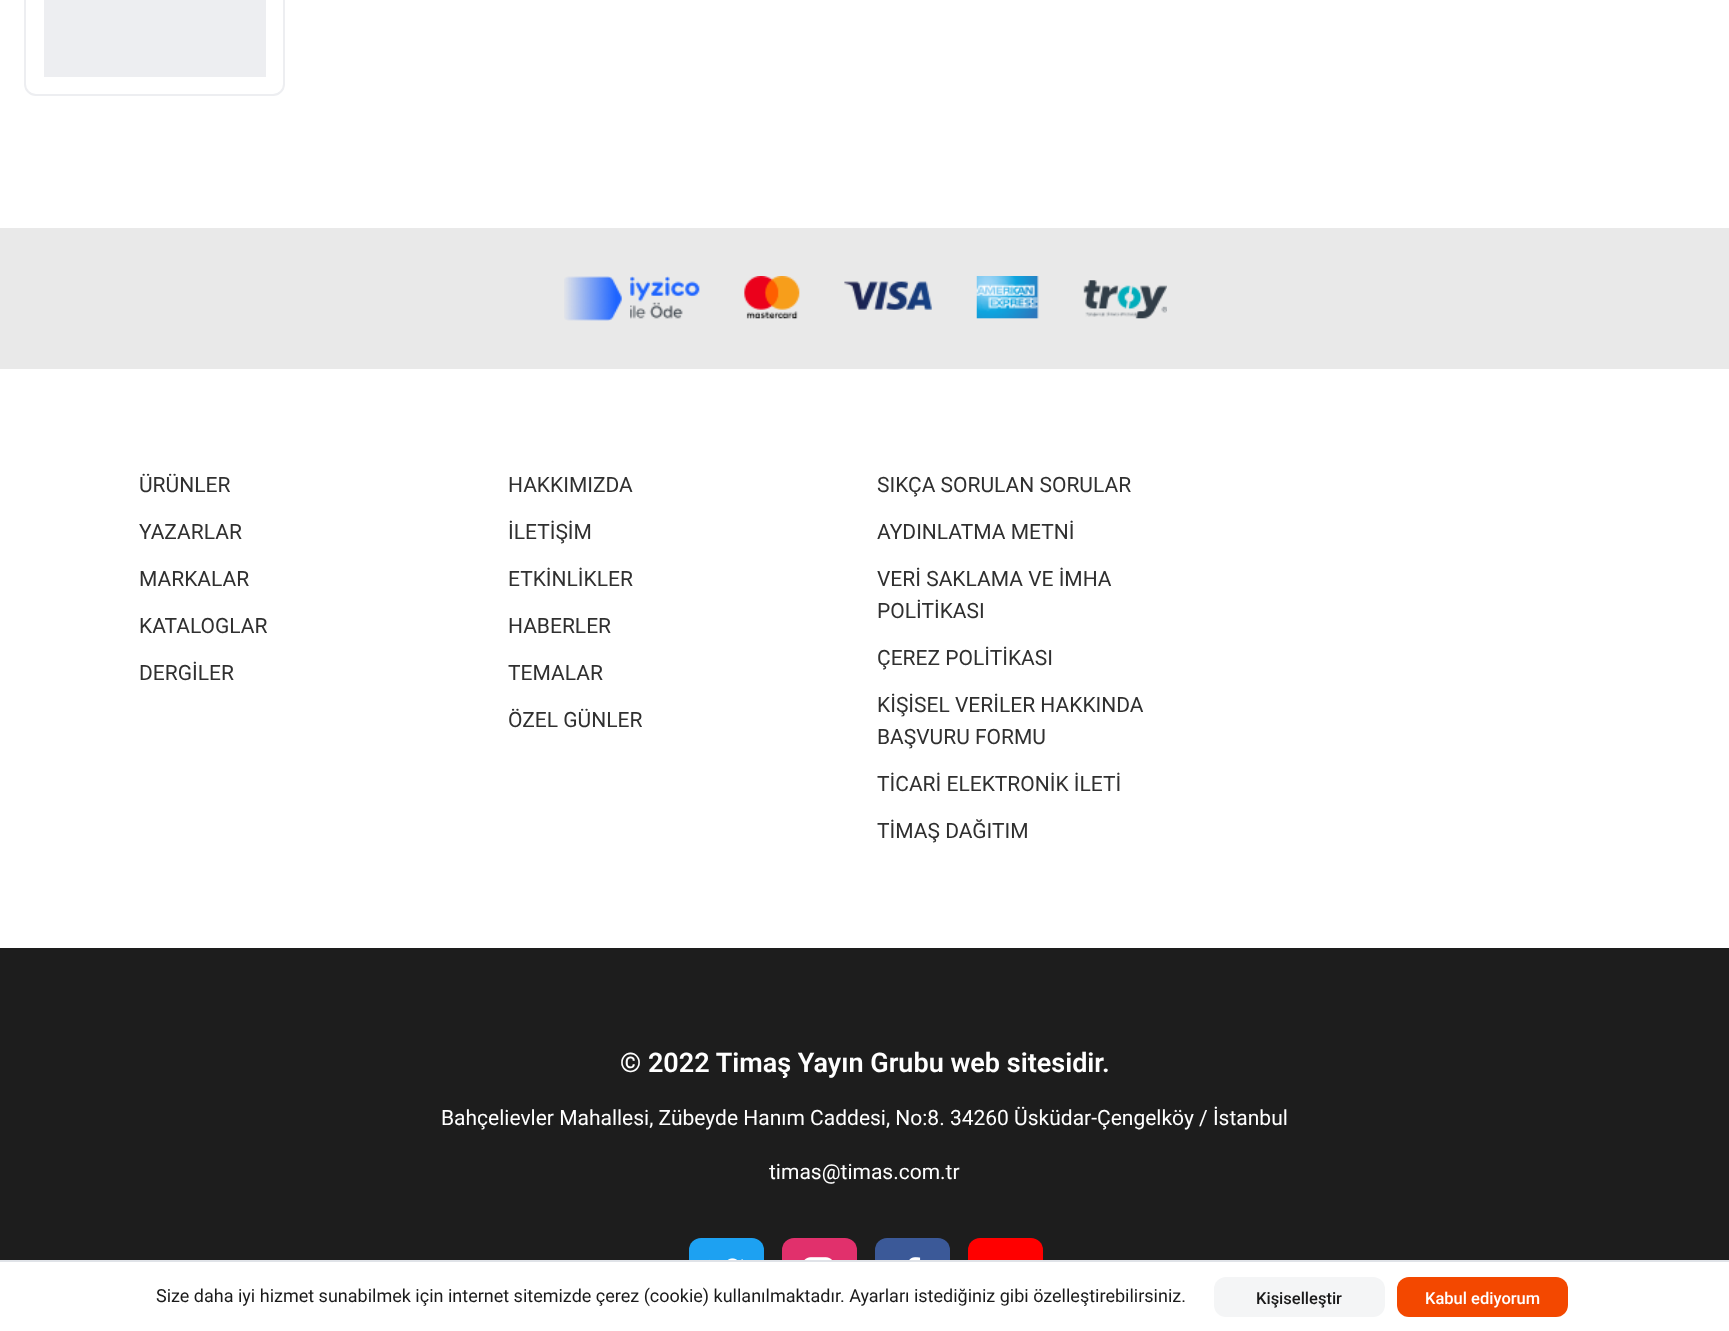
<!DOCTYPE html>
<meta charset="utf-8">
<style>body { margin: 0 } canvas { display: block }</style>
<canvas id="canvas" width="1729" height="1331"></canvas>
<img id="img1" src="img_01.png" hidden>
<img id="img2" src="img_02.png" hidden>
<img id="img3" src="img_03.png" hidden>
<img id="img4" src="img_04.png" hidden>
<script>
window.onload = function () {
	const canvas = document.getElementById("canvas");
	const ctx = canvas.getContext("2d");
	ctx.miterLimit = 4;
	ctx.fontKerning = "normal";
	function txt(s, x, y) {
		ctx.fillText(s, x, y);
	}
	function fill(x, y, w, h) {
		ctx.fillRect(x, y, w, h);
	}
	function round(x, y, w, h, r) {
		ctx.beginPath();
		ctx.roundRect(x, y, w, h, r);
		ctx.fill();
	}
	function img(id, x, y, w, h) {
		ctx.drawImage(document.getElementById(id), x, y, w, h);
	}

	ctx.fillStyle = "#FFFFFF";
	fill(0, 0, 1729, 1331);
	ctx.beginPath();
	ctx.roundRect(25, -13, 259, 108, 11);
	ctx.strokeStyle = "#EDEEF1";
	ctx.lineWidth = 2;
	ctx.stroke();
	ctx.fillStyle = "#EDEEF1";
	fill(44, 0, 222, 77);
	ctx.fillStyle = "#E9E9E9";
	fill(0, 228, 1729, 141);
	img("img1", 564, 276, 603, 45);
	ctx.fillStyle = "#1D1D1D";
	fill(0, 948, 1729, 312);
	ctx.fillStyle = "#1DA1F2";
	round(689, 1238, 75, 75, 12);
	img("img2", 709, 1258, 34, 2);
	ctx.fillStyle = "#E1306C";
	round(782, 1238, 75, 75, 12);
	img("img3", 804, 1257, 28, 3);
	ctx.fillStyle = "#3B5998";
	round(875, 1238, 75, 75, 12);
	img("img4", 909, 1257, 12, 3);
	ctx.fillStyle = "#FF0000";
	round(968, 1238, 75, 75, 12);
	ctx.fillStyle = "#FFFFFF";
	fill(689, 1262, 354, 51);
	ctx.fillStyle = "#E0E3E8";
	fill(0, 1260, 1729, 2);
	ctx.fillStyle = "#F4F5F6";
	round(1214, 1277, 171, 40, 12);
	ctx.fillStyle = "#F34800";
	round(1397, 1277, 171, 40, 12);
	ctx.font = "21px Roboto";
	ctx.fillStyle = "#303030";
	txt("ÜRÜNLER", 139, 492);
	txt("YAZARLAR", 139, 539);
	txt("MARKALAR", 139, 586);
	txt("KATALOGLAR", 139, 633);
	txt("DERGİLER", 139, 680);
	txt("HAKKIMIZDA", 508, 492);
	txt("İLETİŞİM", 508, 539);
	txt("ETKİNLİKLER", 508, 586);
	txt("HABERLER", 508, 633);
	txt("TEMALAR", 508, 680);
	txt("ÖZEL GÜNLER", 508, 727);
	txt("SIKÇA SORULAN SORULAR", 877, 492);
	txt("AYDINLATMA METNİ", 877, 539);
	txt("VERİ SAKLAMA VE İMHA", 877, 586);
	txt("POLİTİKASI", 877, 618);
	txt("ÇEREZ POLİTİKASI", 877, 665);
	txt("KİŞİSEL VERİLER HAKKINDA", 877, 712);
	txt("BAŞVURU FORMU", 877, 744);
	txt("TİCARİ ELEKTRONİK İLETİ", 877, 791);
	txt("TİMAŞ DAĞITIM", 877, 838);
	ctx.font = "600 27px Roboto";
	ctx.fillStyle = "#FFFFFF";
	txt("© 2022 Timaş Yayın Grubu web sitesidir.", 620, 1072);
	ctx.font = "21px Roboto";
	txt("Bahçelievler Mahallesi, Zübeyde Hanım Caddesi, No:8. 34260 Üsküdar-Çengelköy / İstanbul", 441, 1125);
	txt("timas@timas.com.tr", 769, 1179);
	ctx.font = "18px Roboto";
	ctx.fillStyle = "#1A1A1A";
	txt("Size daha iyi hizmet sunabilmek için internet sitemizde çerez (cookie) kullanılmaktadır. Ayarları istediğiniz gibi özelleştirebilirsiniz.", 156, 1302);
	ctx.font = "500 16.5px Roboto";
	txt("Kişiselleştir", 1256, 1304);
	ctx.fillStyle = "#FFFFFF";
	txt("Kabul ediyorum", 1425, 1304);
};
</script>
